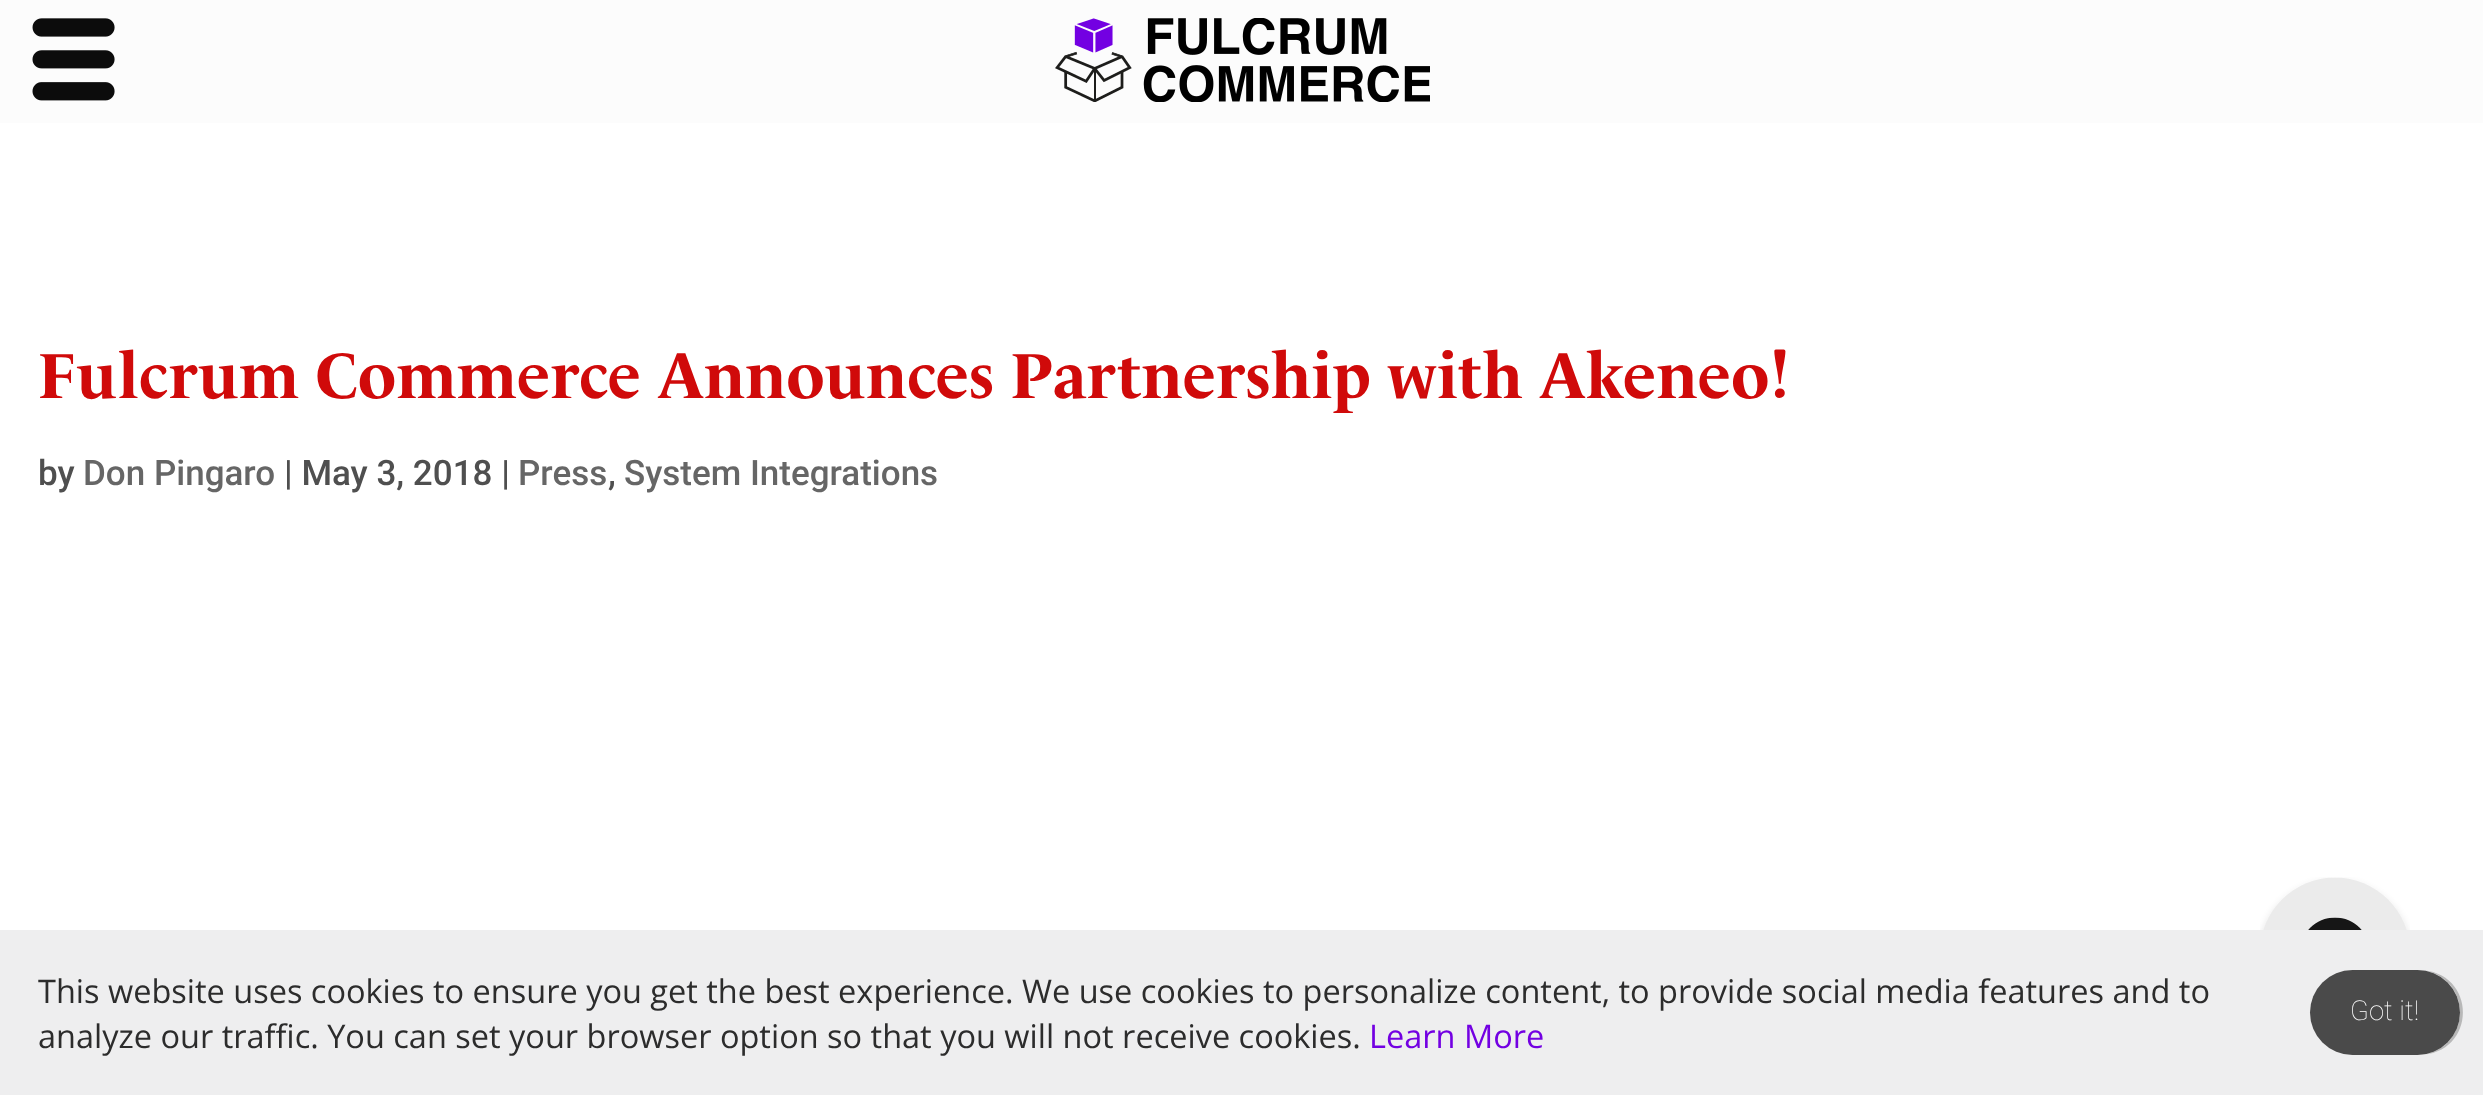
<!DOCTYPE html>
<meta charset="utf-8">
<style>body { margin: 0 } canvas { display: block }</style>
<canvas id="canvas" width="2483" height="1095"></canvas>
<img id="img1" src="img_01.png" hidden>
<img id="img2" src="img_02.png" hidden>
<img id="img3" src="img_03.png" hidden>
<script>
window.onload = function () {
	const canvas = document.getElementById("canvas");
	const ctx = canvas.getContext("2d");
	ctx.miterLimit = 4;
	ctx.fontKerning = "normal";
	function txt(s, x, y) {
		ctx.fillText(s, x, y);
	}
	function fill(x, y, w, h) {
		ctx.fillRect(x, y, w, h);
	}
	function round(x, y, w, h, r) {
		ctx.beginPath();
		ctx.roundRect(x, y, w, h, r);
		ctx.fill();
	}
	function img(id, x, y, w, h) {
		ctx.drawImage(document.getElementById(id), x, y, w, h);
	}

	ctx.fillStyle = "#FFFFFF";
	fill(0, 0, 2483, 1095);
	ctx.fillStyle = "#FCFCFC";
	fill(0, 0, 2483, 123);
	img("img1", 32, 18, 83, 83);
	img("img2", 1055, 18, 375, 84);
	img("img3", 2260, 877, 150, 53);
	ctx.fillStyle = "#EEEEEF";
	fill(0, 930, 2483, 165);
	ctx.fillStyle = "#B8B8B8";
	ctx.beginPath();
	ctx.moveTo(2418, 1055);
	ctx.bezierCurveTo(2478, 1055, 2478, 970, 2418, 970);
	ctx.bezierCurveTo(2441, 970, 2460, 989, 2460, 1012);
	ctx.bezierCurveTo(2460, 1036, 2441, 1055, 2418, 1055);
	ctx.closePath();
	ctx.fill();
	ctx.fillStyle = "#4A4A4A";
	round(2310, 970, 150, 85, 42.5);
	ctx.font = "bold 65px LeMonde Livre";
	ctx.fillStyle = "#D00A0A";
	txt("Fulcrum Commerce Announces Partnership with Akeneo!", 38, 398);
	ctx.font = "500 35px Roboto";
	ctx.fillStyle = "#4F4F4F";
	txt("by", 38, 485);
	ctx.fillStyle = "#666666";
	txt("Don Pingaro", 83, 485);
	ctx.fillStyle = "#4F4F4F";
	txt("| May 3, 2018 |", 284, 485);
	ctx.fillStyle = "#666666";
	txt("Press", 518, 485);
	ctx.fillStyle = "#4F4F4F";
	txt(",", 608, 485);
	ctx.fillStyle = "#666666";
	txt("System Integrations", 624, 485);
	ctx.font = "32.5px Open Sans";
	ctx.fillStyle = "#2C2C2C";
	txt("This website uses cookies to ensure you get the best experience. We use cookies to personalize content, to provide social media features and to", 38, 1003);
	txt("analyze our traffic. You can set your browser option so that you will not receive cookies.", 38, 1048);
	ctx.fillStyle = "#7300E2";
	txt("Learn More", 1369, 1048);
	ctx.font = "100 27.5px Roboto";
	ctx.fillStyle = "#FFFFFF";
	txt("Got it!", 2350, 1020);
};
</script>
